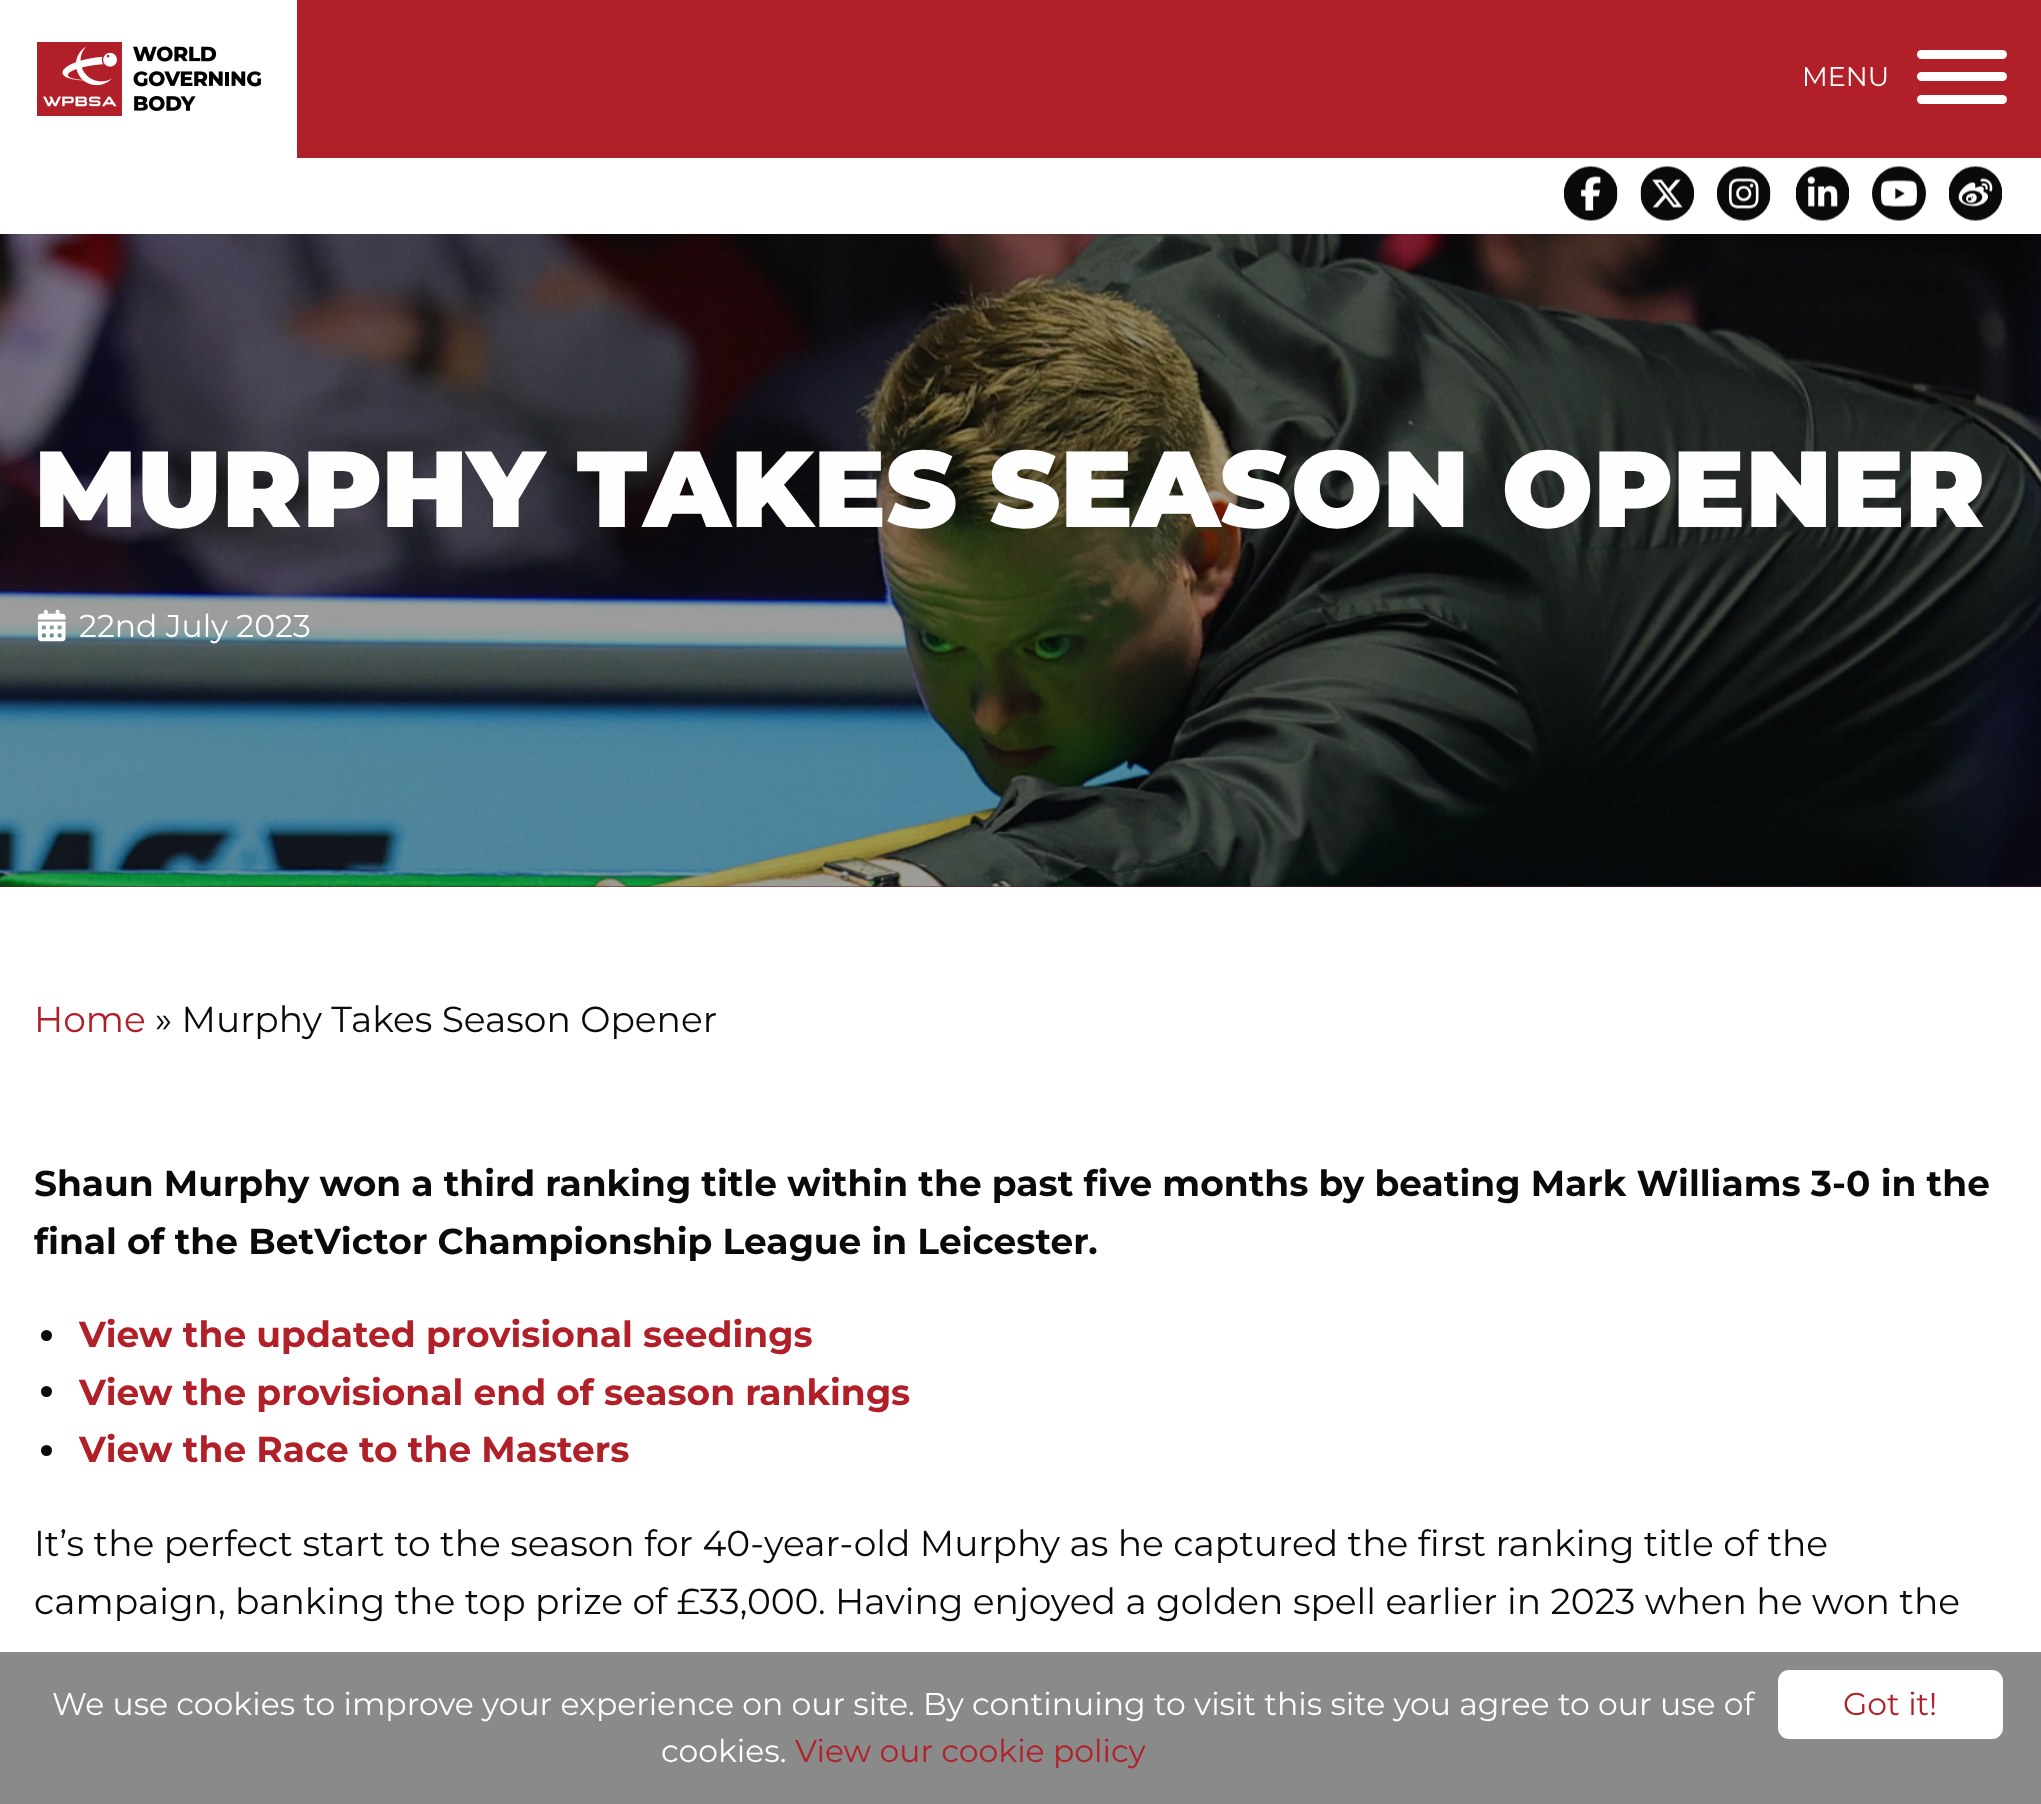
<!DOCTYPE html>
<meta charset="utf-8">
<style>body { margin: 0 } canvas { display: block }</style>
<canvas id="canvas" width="2041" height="1804"></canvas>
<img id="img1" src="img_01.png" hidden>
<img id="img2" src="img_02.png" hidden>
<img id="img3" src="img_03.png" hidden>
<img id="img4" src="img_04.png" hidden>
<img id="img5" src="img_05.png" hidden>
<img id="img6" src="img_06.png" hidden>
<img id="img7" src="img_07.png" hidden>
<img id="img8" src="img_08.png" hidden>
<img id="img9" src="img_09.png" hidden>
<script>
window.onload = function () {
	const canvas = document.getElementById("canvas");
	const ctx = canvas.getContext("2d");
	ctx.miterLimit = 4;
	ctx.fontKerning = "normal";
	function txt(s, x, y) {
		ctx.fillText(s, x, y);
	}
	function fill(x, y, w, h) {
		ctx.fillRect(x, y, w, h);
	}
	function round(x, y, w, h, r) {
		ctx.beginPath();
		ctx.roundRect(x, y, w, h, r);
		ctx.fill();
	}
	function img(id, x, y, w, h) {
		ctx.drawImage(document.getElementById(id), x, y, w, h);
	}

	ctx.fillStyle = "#FFFFFF";
	fill(0, 0, 2041, 1804);
	ctx.fillStyle = "#B12028";
	fill(297, 0, 1744, 158);
	img("img1", 37, 42, 224, 74);
	ctx.fillStyle = "#FEFEFE";
	round(1917, 72, 90, 9, 4.5);
	round(1917, 50, 90, 9, 4.5);
	round(1917, 95, 90, 9, 4.5);
	img("img2", 1564, 166, 54, 55);
	img("img3", 1640, 166, 54, 55);
	img("img4", 1717, 166, 54, 55);
	img("img5", 1796, 166, 53, 55);
	img("img6", 1872, 166, 54, 55);
	img("img7", 1949, 166, 53, 55);
	ctx.fillStyle = "#6E171C";
	fill(0, 886, 2041, 1);
	img("img8", 0, 234, 2041, 653);
	img("img9", 37, 609, 29, 33);
	ctx.fillStyle = "#0A0A0A";
	ctx.beginPath();
	ctx.arc(46.5, 1335.5, 5.5, 0, Math.PI * 2);
	ctx.fill();
	ctx.beginPath();
	ctx.arc(46.5, 1391.5, 5.5, 0, Math.PI * 2);
	ctx.fill();
	ctx.beginPath();
	ctx.arc(46.5, 1450.5, 5.5, 0, Math.PI * 2);
	ctx.fill();
	ctx.fillStyle = "#8A8A8A";
	fill(0, 1652, 2041, 152);
	ctx.fillStyle = "#FFFFFF";
	round(1778, 1670, 225, 69, 11);
	ctx.font = "100 27px Montserrat";
	ctx.fillStyle = "#FEFEFE";
	txt("MENU", 1802, 86);
	ctx.font = "100 108px 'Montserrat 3'";
	txt("MURPHY TAKES SEASON OPENER", 34, 527);
	ctx.font = "100 31.5px Montserrat";
	txt("22nd July 2023", 79, 637);
	ctx.font = "100 36px Montserrat";
	ctx.fillStyle = "#B12028";
	txt("Home", 34, 1032);
	ctx.fillStyle = "#0A0A0A";
	txt("» Murphy Takes Season Opener", 155, 1032);
	ctx.font = "100 36px 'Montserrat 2'";
	txt("Shaun Murphy won a third ranking title within the past five months by beating Mark Williams 3-0 in the", 34, 1196);
	txt("final of the BetVictor Championship League in Leicester.", 34, 1254);
	ctx.fillStyle = "#B12028";
	txt("View the updated provisional seedings", 79, 1347);
	txt("View the provisional end of season rankings", 79, 1405);
	txt("View the Race to the Masters", 79, 1462);
	ctx.font = "100 36px Montserrat";
	ctx.fillStyle = "#0A0A0A";
	txt("It’s the perfect start to the season for 40-year-old Murphy as he captured the first ranking title of the", 34, 1556);
	txt("campaign, banking the top prize of £33,000. Having enjoyed a golden spell earlier in 2023 when he won the", 34, 1614);
	ctx.font = "100 31.5px Montserrat";
	ctx.fillStyle = "#FEFEFE";
	txt("We use cookies to improve your experience on our site. By continuing to visit this site you agree to our use of", 52, 1715);
	txt("cookies.", 661, 1762);
	ctx.fillStyle = "#B12028";
	txt("View our cookie policy", 795, 1762);
	txt("Got it!", 1843, 1715);
};
</script>
